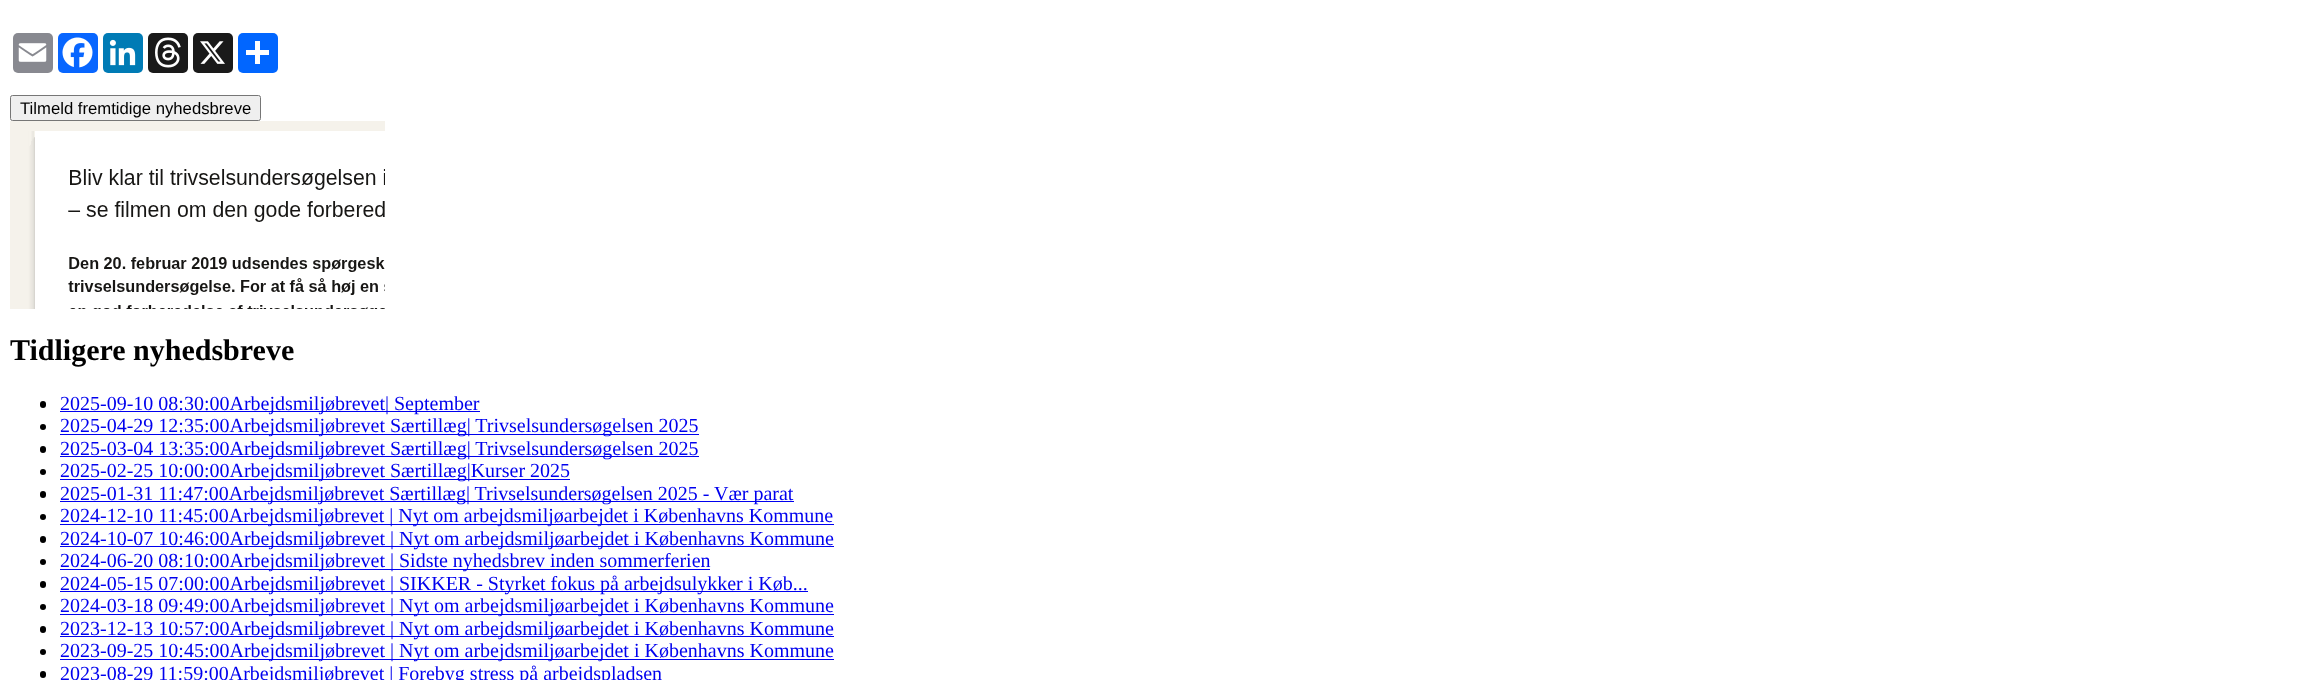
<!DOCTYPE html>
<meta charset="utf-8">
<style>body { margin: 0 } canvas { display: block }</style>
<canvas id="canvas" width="2308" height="680"></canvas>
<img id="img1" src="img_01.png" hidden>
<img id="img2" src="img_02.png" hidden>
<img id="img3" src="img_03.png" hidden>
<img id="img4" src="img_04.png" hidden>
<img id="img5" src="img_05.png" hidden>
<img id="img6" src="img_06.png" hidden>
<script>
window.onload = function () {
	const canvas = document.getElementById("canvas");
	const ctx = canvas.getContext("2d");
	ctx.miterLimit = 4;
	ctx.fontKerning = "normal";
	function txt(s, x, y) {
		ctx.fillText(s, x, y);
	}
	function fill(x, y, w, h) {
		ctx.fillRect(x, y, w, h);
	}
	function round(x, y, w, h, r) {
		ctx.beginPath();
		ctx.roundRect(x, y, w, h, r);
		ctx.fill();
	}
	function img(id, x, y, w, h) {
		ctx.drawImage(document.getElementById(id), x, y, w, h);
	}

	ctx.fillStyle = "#FFFFFF";
	fill(0, 0, 2308, 680);
	ctx.fillStyle = "#888990";
	round(13, 33, 40, 40, 5);
	img("img1", 18, 43, 29, 19);
	ctx.fillStyle = "#0866FF";
	round(58, 33, 40, 40, 5);
	img("img2", 62, 37, 31, 31);
	ctx.fillStyle = "#007BB5";
	round(103, 33, 40, 40, 5);
	img("img3", 109, 39, 27, 27);
	ctx.fillStyle = "#1A1A1A";
	round(148, 33, 40, 40, 5);
	img("img4", 155, 37, 26, 31);
	round(193, 33, 40, 40, 5);
	img("img5", 200, 41, 25, 23);
	ctx.fillStyle = "#0166FF";
	round(238, 33, 40, 40, 5);
	ctx.fillStyle = "#FFFFFF";
	fill(255, 41, 5, 23);
	fill(246, 50, 23, 5);
	ctx.fillStyle = "#EFEFEF";
	ctx.beginPath();
	ctx.roundRect(10.5, 95.5, 250, 25, 2);
	ctx.fill();
	ctx.strokeStyle = "#767676";
	ctx.stroke();
	img("img6", 10, 121, 375, 188);
	ctx.fillStyle = "#000000";
	round(40, 401, 6, 7, 3);
	ctx.fillStyle = "#0000EE";
	fill(60, 411, 420, 1);
	ctx.fillStyle = "#000000";
	ctx.beginPath();
	ctx.arc(43, 427, 3, 0, Math.PI * 2);
	ctx.fill();
	ctx.fillStyle = "#0000EE";
	fill(60, 434, 639, 1);
	ctx.fillStyle = "#000000";
	round(40, 446, 6, 7, 3);
	ctx.fillStyle = "#0000EE";
	fill(60, 456, 639, 1);
	ctx.fillStyle = "#000000";
	ctx.beginPath();
	ctx.arc(43, 472, 3, 0, Math.PI * 2);
	ctx.fill();
	ctx.fillStyle = "#0000EE";
	fill(60, 479, 510, 1);
	ctx.fillStyle = "#000000";
	round(40, 491, 6, 7, 3);
	ctx.fillStyle = "#0000EE";
	fill(60, 501, 734, 1);
	ctx.fillStyle = "#000000";
	ctx.beginPath();
	ctx.arc(43, 517, 3, 0, Math.PI * 2);
	ctx.fill();
	ctx.fillStyle = "#0000EE";
	fill(60, 524, 774, 1);
	ctx.fillStyle = "#000000";
	round(40, 536, 6, 7, 3);
	ctx.fillStyle = "#0000EE";
	fill(60, 546, 774, 1);
	ctx.fillStyle = "#000000";
	ctx.beginPath();
	ctx.arc(43, 562, 3, 0, Math.PI * 2);
	ctx.fill();
	ctx.fillStyle = "#0000EE";
	fill(60, 569, 650, 1);
	ctx.fillStyle = "#000000";
	round(40, 581, 6, 7, 3);
	ctx.fillStyle = "#0000EE";
	fill(60, 591, 748, 1);
	ctx.fillStyle = "#000000";
	ctx.beginPath();
	ctx.arc(43, 607, 3, 0, Math.PI * 2);
	ctx.fill();
	ctx.fillStyle = "#0000EE";
	fill(60, 614, 774, 1);
	ctx.fillStyle = "#000000";
	round(40, 626, 6, 7, 3);
	ctx.fillStyle = "#0000EE";
	fill(60, 636, 774, 1);
	ctx.fillStyle = "#000000";
	ctx.beginPath();
	ctx.arc(43, 652, 3, 0, Math.PI * 2);
	ctx.fill();
	ctx.fillStyle = "#0000EE";
	fill(60, 659, 774, 1);
	ctx.fillStyle = "#000000";
	round(40, 671, 6, 7, 3);
	ctx.font = "16.7px Liberation Sans";
	txt("Tilmeld fremtidige nyhedsbreve", 20, 114);
	ctx.font = "bold 30px Liberation Serif";
	txt("Tidligere nyhedsbreve", 10, 360);
	ctx.font = "20px Liberation Serif";
	ctx.fillStyle = "#0000EE";
	txt("2025-09-10 08:30:00Arbejdsmiljøbrevet| September", 60, 410);
	txt("2025-04-29 12:35:00Arbejdsmiljøbrevet Særtillæg| Trivselsundersøgelsen 2025", 60, 432);
	txt("2025-03-04 13:35:00Arbejdsmiljøbrevet Særtillæg| Trivselsundersøgelsen 2025", 60, 455);
	txt("2025-02-25 10:00:00Arbejdsmiljøbrevet Særtillæg|Kurser 2025", 60, 477);
	txt("2025-01-31 11:47:00Arbejdsmiljøbrevet Særtillæg| Trivselsundersøgelsen 2025 - Vær parat", 60, 500);
	txt("2024-12-10 11:45:00Arbejdsmiljøbrevet | Nyt om arbejdsmiljøarbejdet i Københavns Kommune", 60, 522);
	txt("2024-10-07 10:46:00Arbejdsmiljøbrevet | Nyt om arbejdsmiljøarbejdet i Københavns Kommune", 60, 545);
	txt("2024-06-20 08:10:00Arbejdsmiljøbrevet | Sidste nyhedsbrev inden sommerferien", 60, 567);
	txt("2024-05-15 07:00:00Arbejdsmiljøbrevet | SIKKER - Styrket fokus på arbejdsulykker i Køb...", 60, 590);
	txt("2024-03-18 09:49:00Arbejdsmiljøbrevet | Nyt om arbejdsmiljøarbejdet i Københavns Kommune", 60, 612);
	txt("2023-12-13 10:57:00Arbejdsmiljøbrevet | Nyt om arbejdsmiljøarbejdet i Københavns Kommune", 60, 635);
	txt("2023-09-25 10:45:00Arbejdsmiljøbrevet | Nyt om arbejdsmiljøarbejdet i Københavns Kommune", 60, 657);
	txt("2023-08-29 11:59:00Arbejdsmiljøbrevet | Forebyg stress på arbejdspladsen", 60, 680);
};
</script>
